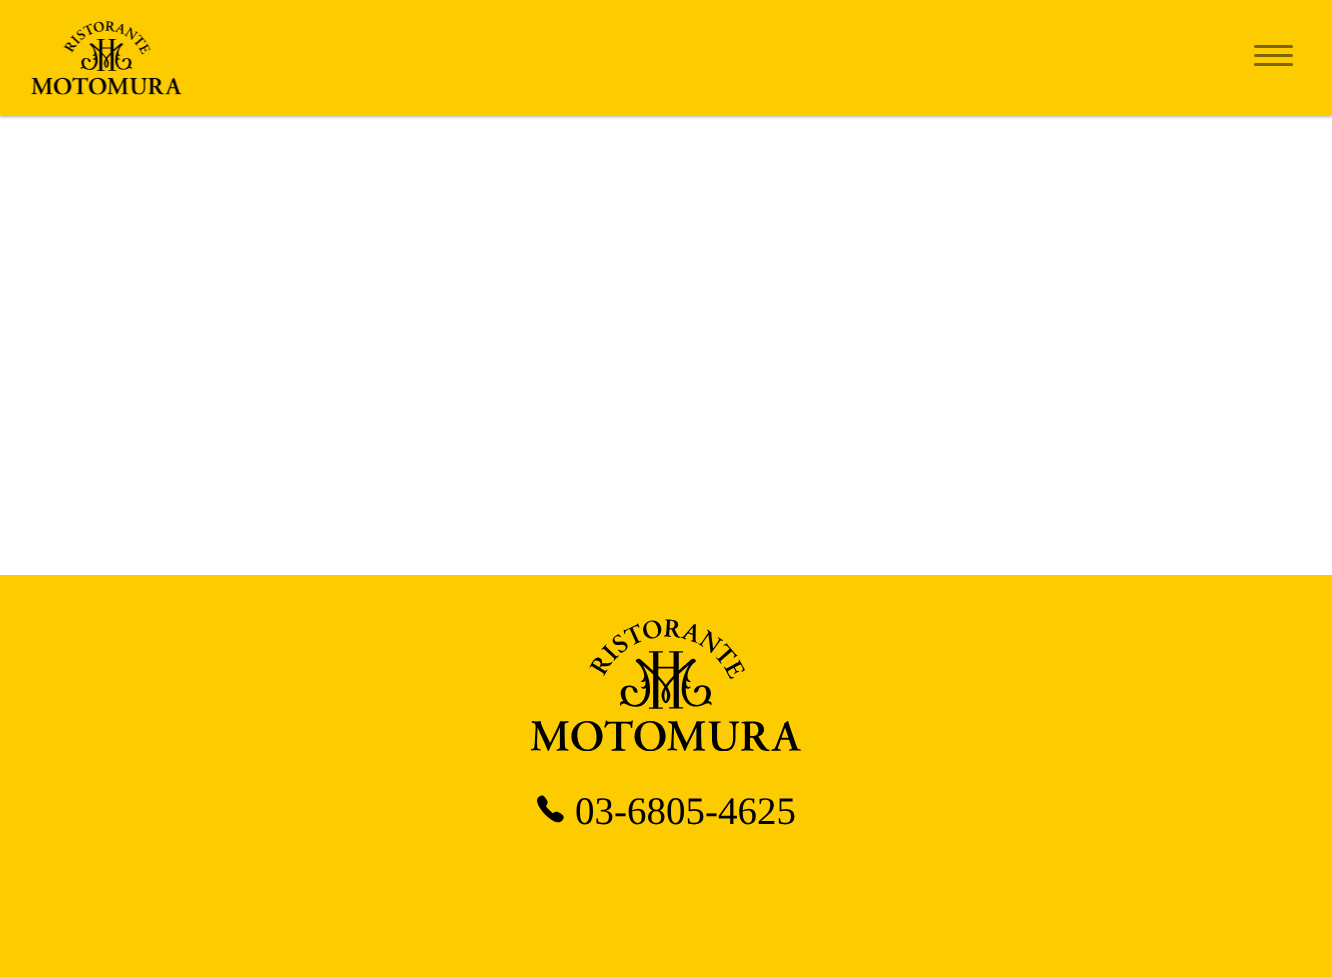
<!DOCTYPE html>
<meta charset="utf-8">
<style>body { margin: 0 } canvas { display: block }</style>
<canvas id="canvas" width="1332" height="977"></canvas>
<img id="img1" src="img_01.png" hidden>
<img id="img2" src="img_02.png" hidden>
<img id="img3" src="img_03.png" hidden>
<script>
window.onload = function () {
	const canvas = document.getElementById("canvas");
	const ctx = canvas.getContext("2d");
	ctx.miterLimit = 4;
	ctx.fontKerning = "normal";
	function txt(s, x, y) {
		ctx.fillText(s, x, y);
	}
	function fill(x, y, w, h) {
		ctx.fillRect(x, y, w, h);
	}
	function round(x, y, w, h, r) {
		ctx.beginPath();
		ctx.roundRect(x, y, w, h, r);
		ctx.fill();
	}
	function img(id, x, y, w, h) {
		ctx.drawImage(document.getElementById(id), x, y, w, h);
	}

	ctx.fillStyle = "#FFFFFF";
	fill(0, 0, 1332, 977);
	ctx.fillStyle = "rgba(0, 0, 0, 0.3)";
	ctx.filter = "blur(1.5px)";
	ctx.beginPath();
	ctx.rect(0, 2, 1332, 115);
	ctx.fill();
	ctx.filter = "none";
	ctx.fillStyle = "#FCCB00";
	fill(0, 0, 1332, 116);
	img("img1", 31, 21, 151, 74);
	ctx.fillStyle = "#7E6600";
	round(1254, 45, 39, 3, 1.5);
	round(1254, 54, 39, 3, 1.5);
	round(1254, 63, 39, 3, 1.5);
	ctx.fillStyle = "#FCCB00";
	fill(0, 575, 1332, 402);
	img("img2", 531, 619, 270, 132);
	img("img3", 537, 795, 27, 28);
	ctx.font = "39px Liberation Serif";
	ctx.fillStyle = "#000000";
	txt("03-6805-4625", 575, 824);
};
</script>
